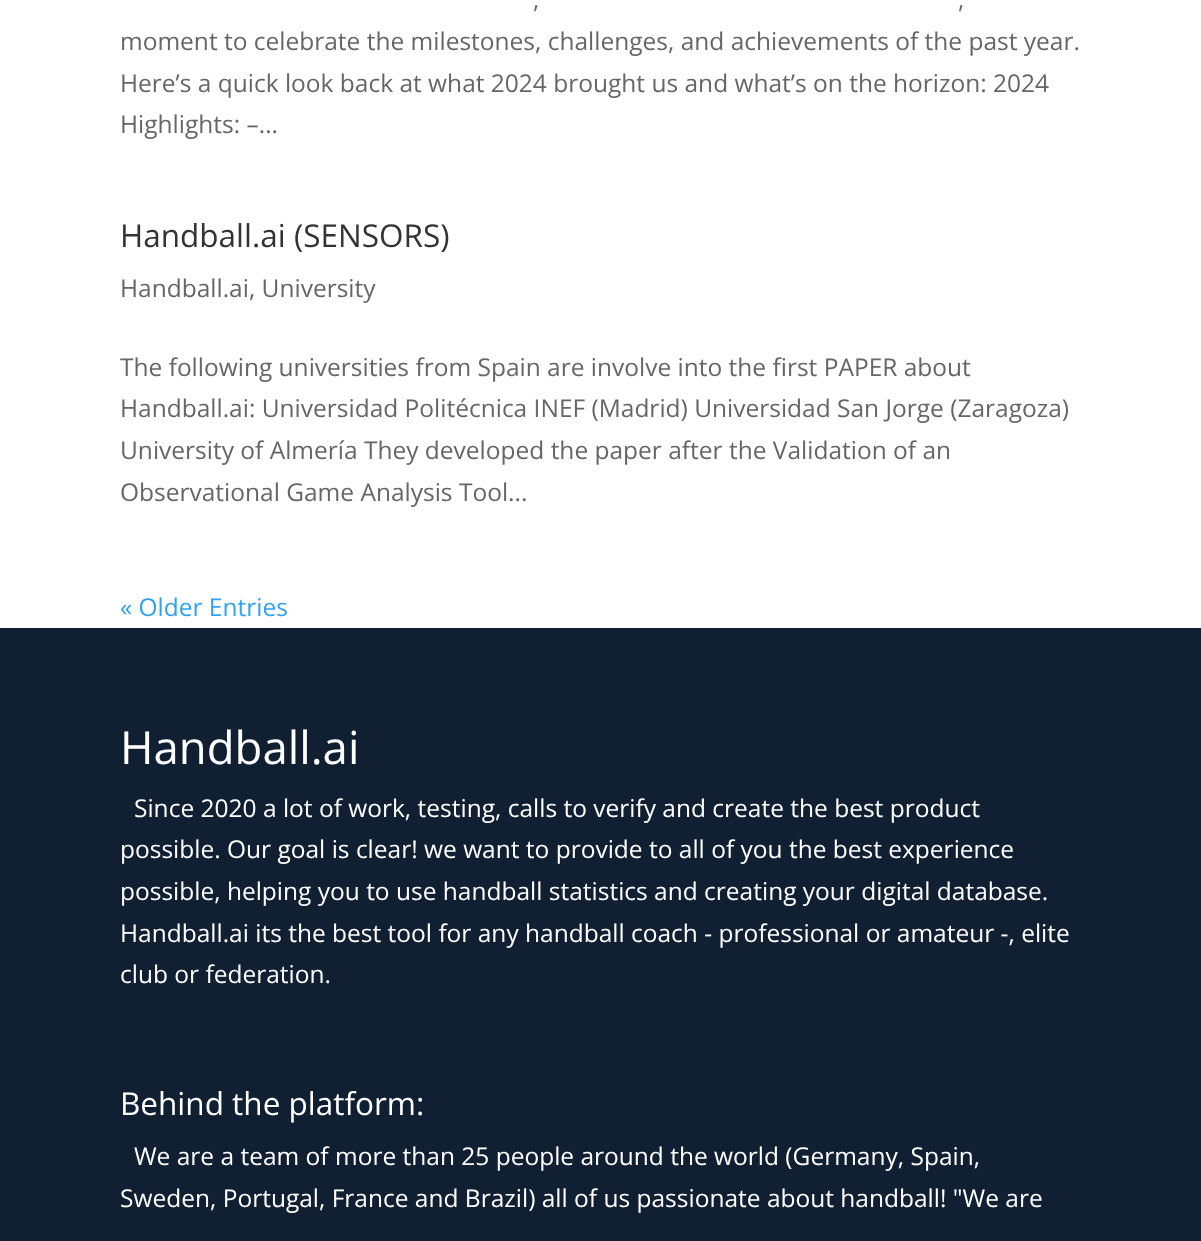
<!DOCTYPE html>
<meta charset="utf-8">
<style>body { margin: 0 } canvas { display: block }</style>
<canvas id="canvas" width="1201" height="1241"></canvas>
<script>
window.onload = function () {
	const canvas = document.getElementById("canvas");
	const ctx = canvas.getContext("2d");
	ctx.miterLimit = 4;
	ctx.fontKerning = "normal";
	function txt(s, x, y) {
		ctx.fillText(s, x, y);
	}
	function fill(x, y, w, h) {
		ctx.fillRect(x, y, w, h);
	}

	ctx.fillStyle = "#FFFFFF";
	fill(0, 0, 1201, 1241);
	ctx.fillStyle = "#111F33";
	fill(0, 628, 1201, 613);
	ctx.font = "24.5px Open Sans";
	ctx.fillStyle = "#666666";
	txt(",", 533, 8);
	txt(",", 958, 8);
	txt("moment to celebrate the milestones, challenges, and achievements of the past year.", 120, 50);
	txt("Here’s a quick look back at what 2024 brought us and what’s on the horizon: 2024", 120, 92);
	txt("Highlights: –...", 120, 133);
	ctx.font = "31.5px Open Sans";
	ctx.fillStyle = "#333333";
	txt("Handball.ai (SENSORS)", 120, 247);
	ctx.font = "24.5px Open Sans";
	ctx.fillStyle = "#666666";
	txt("Handball.ai, University", 120, 297);
	txt("The following universities from Spain are involve into the first PAPER about", 120, 376);
	txt("Handball.ai: Universidad Politécnica INEF (Madrid) Universidad San Jorge (Zaragoza)", 120, 417);
	txt("University of Almería They developed the paper after the Validation of an", 120, 459);
	txt("Observational Game Analysis Tool...", 120, 501);
	ctx.fillStyle = "#2EA3F2";
	txt("« Older Entries", 120, 616);
	ctx.font = "45.5px Open Sans";
	ctx.fillStyle = "#FFFFFF";
	txt("Handball.ai", 120, 764);
	ctx.font = "24.5px Open Sans";
	txt("Since 2020 a lot of work, testing, calls to verify and create the best product", 134, 817);
	txt("possible. Our goal is clear! we want to provide to all of you the best experience", 120, 858);
	txt("possible, helping you to use handball statistics and creating your digital database.", 120, 900);
	txt("Handball.ai its the best tool for any handball coach - professional or amateur -, elite", 120, 942);
	txt("club or federation.", 120, 983);
	ctx.font = "31.5px Open Sans";
	txt("Behind the platform:", 120, 1115);
	ctx.font = "24.5px Open Sans";
	txt("We are a team of more than 25 people around the world (Germany, Spain,", 134, 1165);
	txt("Sweden, Portugal, France and Brazil) all of us passionate about handball! \"We are", 120, 1207);
};
</script>
